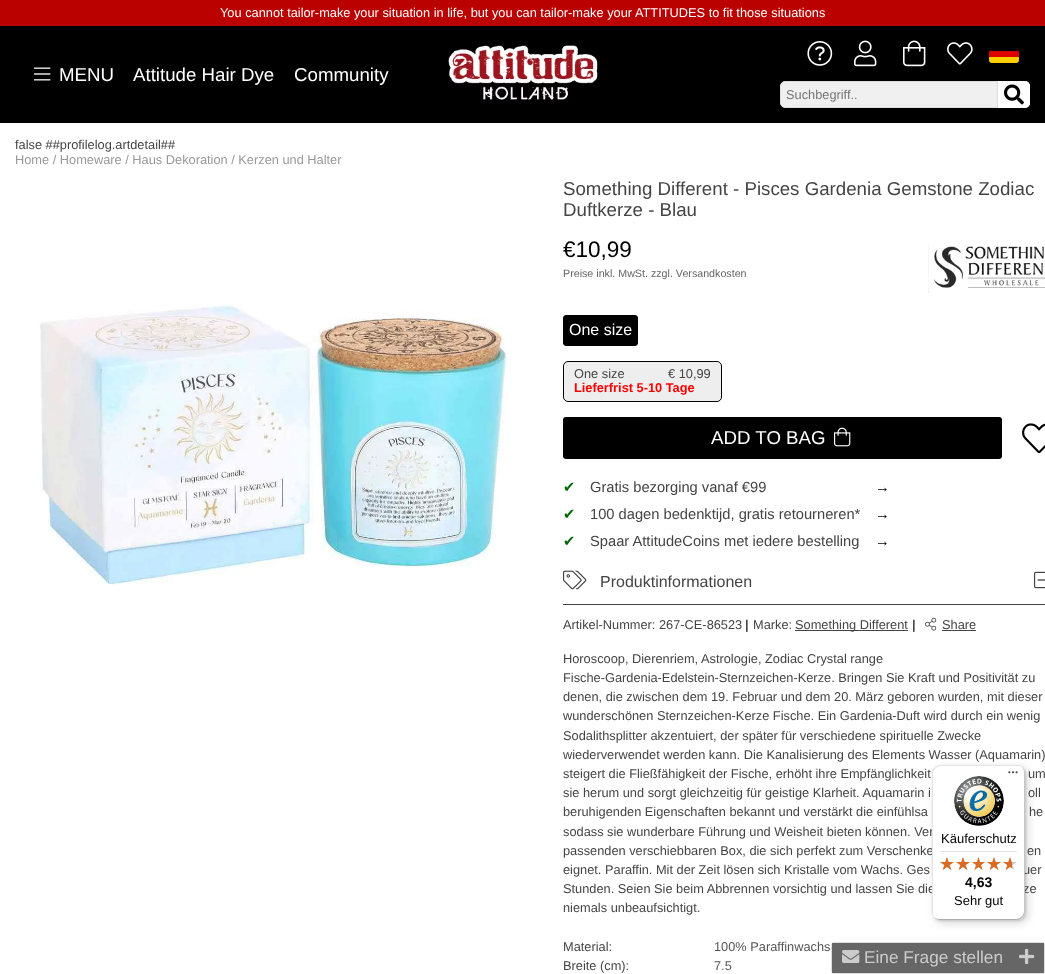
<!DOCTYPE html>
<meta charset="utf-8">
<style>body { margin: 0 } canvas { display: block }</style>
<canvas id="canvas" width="1045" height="974"></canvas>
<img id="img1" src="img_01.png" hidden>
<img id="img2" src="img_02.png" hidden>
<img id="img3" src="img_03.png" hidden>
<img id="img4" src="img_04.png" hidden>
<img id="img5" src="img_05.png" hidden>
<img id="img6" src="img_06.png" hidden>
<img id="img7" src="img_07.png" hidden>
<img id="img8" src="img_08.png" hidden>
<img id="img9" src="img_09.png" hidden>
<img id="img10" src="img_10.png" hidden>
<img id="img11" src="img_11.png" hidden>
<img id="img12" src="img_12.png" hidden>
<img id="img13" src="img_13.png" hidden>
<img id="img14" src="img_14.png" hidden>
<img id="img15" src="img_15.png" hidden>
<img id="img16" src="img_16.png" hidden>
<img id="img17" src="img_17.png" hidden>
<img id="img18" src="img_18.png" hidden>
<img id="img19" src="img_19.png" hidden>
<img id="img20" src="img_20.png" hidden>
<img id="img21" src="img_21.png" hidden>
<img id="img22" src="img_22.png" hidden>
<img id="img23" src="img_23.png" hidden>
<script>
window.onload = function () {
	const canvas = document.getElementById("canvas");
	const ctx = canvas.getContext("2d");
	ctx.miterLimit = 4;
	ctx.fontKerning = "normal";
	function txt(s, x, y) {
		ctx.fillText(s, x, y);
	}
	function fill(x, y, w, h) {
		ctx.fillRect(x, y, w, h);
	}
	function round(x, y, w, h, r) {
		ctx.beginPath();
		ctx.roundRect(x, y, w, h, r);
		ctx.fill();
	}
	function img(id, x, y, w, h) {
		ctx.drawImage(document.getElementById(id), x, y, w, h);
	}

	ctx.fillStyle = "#FFFFFF";
	fill(0, 0, 1045, 974);
	ctx.fillStyle = "#BB0000";
	fill(0, 0, 1045, 26);
	ctx.fillStyle = "#000000";
	fill(0, 26, 1045, 97);
	img("img1", 34, 67, 17, 14);
	img("img2", 448, 45, 150, 55);
	img("img3", 807, 41, 26, 25);
	img("img4", 854, 40, 23, 27);
	img("img5", 903, 40, 23, 27);
	img("img6", 947, 42, 26, 23);
	ctx.fillStyle = "#DD0000";
	fill(989, 51, 30, 6);
	ctx.fillStyle = "#FFCE00";
	ctx.beginPath();
	ctx.roundRect(989, 57, 30, 6, [0, 0, 3, 3]);
	ctx.fill();
	ctx.fillStyle = "#F0F0F0";
	ctx.beginPath();
	ctx.roundRect(780.5, 81.5, 249, 26, 4.5);
	ctx.fill();
	ctx.strokeStyle = "#DDDDDD";
	ctx.stroke();
	ctx.fillStyle = "#FFFFFF";
	ctx.beginPath();
	ctx.roundRect(997, 81, 33, 27, [0, 5, 5, 0]);
	ctx.fill();
	ctx.fillStyle = "#DDDDDD";
	fill(997, 81, 1, 27);
	img("img7", 1004, 84, 20, 21);
	img("img8", 39, 304, 473, 282);
	img("img9", 928, 244, 117, 49);
	ctx.fillStyle = "#000000";
	ctx.beginPath();
	ctx.roundRect(563.5, 315.5, 74, 30, 2.5);
	ctx.fill();
	ctx.strokeStyle = "#000000";
	ctx.stroke();
	ctx.fillStyle = "#EEEEEE";
	ctx.beginPath();
	ctx.roundRect(563.5, 361.5, 158, 40, 4.5);
	ctx.fill();
	ctx.stroke();
	ctx.fillStyle = "#000000";
	round(563, 417, 439, 42, 3);
	img("img10", 834, 427, 17, 20);
	img("img11", 1022, 423, 23, 31);
	ctx.fillStyle = "#444444";
	fill(563, 604, 482, 1);
	img("img12", 563, 570, 24, 20);
	img("img13", 1034, 571, 11, 18);
	fill(795, 630, 113, 1);
	img("img14", 925, 617, 12, 14);
	fill(942, 630, 34, 1);
	ctx.beginPath();
	ctx.roundRect(831.5, 942.5, 213, 31, 2.5);
	ctx.strokeStyle = "#DDDDDD";
	ctx.stroke();
	ctx.fillStyle = "#666666";
	fill(832, 943, 212, 30);
	img("img15", 842, 950, 18, 13);
	img("img16", 1019, 948, 16, 17);
	ctx.fillStyle = "rgba(0, 0, 0, 0.15)";
	ctx.filter = "blur(4px)";
	ctx.beginPath();
	ctx.roundRect(935, 768, 93, 155, 8);
	ctx.fill();
	ctx.filter = "none";
	ctx.filter = "blur(1px)";
	ctx.beginPath();
	ctx.roundRect(933, 766, 93, 155, 8);
	ctx.fill();
	ctx.filter = "none";
	ctx.font = "12.8px Liberation Sans";
	ctx.fillStyle = "#FFFFFF";
	txt("You cannot tailor-make your situation in life, but you can tailor-make your ATTITUDES to fit those situations", 220, 17);
	ctx.font = "18.7px Liberation Sans";
	txt("MENU", 59, 81);
	txt("Attitude Hair Dye", 133, 81);
	txt("Community", 294, 81);
	ctx.font = "12.8px Liberation Sans";
	ctx.fillStyle = "#757575";
	txt("Suchbegriff..", 786, 99);
	ctx.fillStyle = "#444444";
	txt("false ##profilelog.artdetail##", 15, 149);
	ctx.fillStyle = "#999999";
	txt("Home / Homeware / Haus Dekoration / Kerzen und Halter", 15, 164);
	ctx.font = "18.7px Liberation Sans";
	ctx.fillStyle = "#444444";
	txt("Something Different - Pisces Gardenia Gemstone Zodiac", 563, 195);
	txt("Duftkerze - Blau", 563, 216);
	ctx.font = "22.5px Liberation Sans";
	ctx.fillStyle = "#000000";
	txt("€10,99", 563, 257);
	ctx.font = "10.7px Liberation Sans";
	ctx.fillStyle = "#666666";
	txt("Preise inkl. MwSt. zzgl. Versandkosten", 563, 277);
	ctx.font = "16px Liberation Sans";
	ctx.fillStyle = "#FFFFFF";
	txt("One size", 569, 335);
	ctx.font = "12.8px Liberation Sans";
	ctx.fillStyle = "#444444";
	txt("One size", 574, 378);
	txt("€ 10,99", 668, 378);
	ctx.font = "bold 12.8px Liberation Sans";
	ctx.fillStyle = "#FF0000";
	txt("Lieferfrist 5-10 Tage", 574, 392);
	ctx.font = "18.7px Liberation Sans";
	ctx.fillStyle = "#FFFFFF";
	txt("ADD TO BAG", 711, 444);
	ctx.font = "14.7px DejaVu Sans";
	ctx.fillStyle = "#006600";
	txt("✔", 563, 492);
	ctx.font = "14.7px Liberation Sans";
	ctx.fillStyle = "#444444";
	txt("Gratis bezorging vanaf €99", 590, 492);
	ctx.fillStyle = "#000000";
	txt("→", 875, 492);
	ctx.font = "14.7px DejaVu Sans";
	ctx.fillStyle = "#006600";
	txt("✔", 563, 519);
	ctx.font = "14.7px Liberation Sans";
	ctx.fillStyle = "#444444";
	txt("100 dagen bedenktijd, gratis retourneren*", 590, 519);
	ctx.fillStyle = "#000000";
	txt("→", 875, 519);
	ctx.font = "14.7px DejaVu Sans";
	ctx.fillStyle = "#006600";
	txt("✔", 563, 546);
	ctx.font = "14.7px Liberation Sans";
	ctx.fillStyle = "#444444";
	txt("Spaar AttitudeCoins met iedere bestelling", 590, 546);
	ctx.fillStyle = "#000000";
	txt("→", 875, 546);
	ctx.font = "16px Liberation Sans";
	ctx.fillStyle = "#444444";
	txt("Produktinformationen", 600, 587);
	ctx.font = "12.8px Liberation Sans";
	txt("Artikel-Nummer: 267-CE-86523", 563, 629);
	ctx.font = "bold 12.8px Liberation Sans";
	txt("|", 745, 629);
	ctx.font = "12.8px Liberation Sans";
	txt("Marke:", 753, 629);
	txt("Something Different", 795, 629);
	ctx.font = "bold 12.8px Liberation Sans";
	txt("|", 912, 629);
	ctx.font = "12.8px Liberation Sans";
	txt("Share", 942, 629);
	txt("Horoscoop, Dierenriem, Astrologie, Zodiac Crystal range", 563, 663);
	txt("Fische-Gardenia-Edelstein-Sternzeichen-Kerze. Bringen Sie Kraft und Positivität zu", 563, 682);
	txt("denen, die zwischen dem 19. Februar und dem 20. März geboren wurden, mit dieser", 563, 701);
	txt("wunderschönen Sternzeichen-Kerze Fische. Ein Gardenia-Duft wird durch ein wenig", 563, 720);
	txt("Sodalithsplitter akzentuiert, der später für verschiedene spirituelle Zwecke", 563, 740);
	txt("wiederverwendet werden kann. Die Kanalisierung des Elements Wasser (Aquamarin)", 563, 759);
	txt("steigert die Fließfähigkeit der Fische, erhöht ihre Empfänglichkeit", 563, 778);
	txt("um", 1028, 778);
	txt("sie herum und sorgt gleichzeitig für geistige Klarheit. Aquamarin i", 563, 797);
	txt("oll", 1028, 797);
	txt("beruhigenden Eigenschaften bekannt und verstärkt die einfühlsa", 563, 816);
	txt("he", 1029, 816);
	txt("sodass sie wunderbare Führung und Weisheit bieten können. Ver", 563, 836);
	txt("passenden verschiebbaren Box, die sich perfekt zum Verschenke", 563, 855);
	txt("en", 1027, 855);
	txt("eignet. Paraffin. Mit der Zeit lösen sich Kristalle vom Wachs. Ges", 563, 874);
	txt("uer", 1023, 874);
	txt("Stunden. Seien Sie beim Abbrennen vorsichtig und lassen Sie die", 563, 893);
	txt("ze", 1023, 893);
	txt("niemals unbeaufsichtigt.", 563, 912);
	txt("Material:", 563, 951);
	ctx.fillStyle = "#555555";
	txt("100% Paraffinwachs", 714, 951);
	ctx.fillStyle = "#444444";
	txt("Breite (cm):", 563, 970);
	ctx.fillStyle = "#555555";
	txt("7.5", 714, 970);
	ctx.font = "17.25px Liberation Sans";
	ctx.fillStyle = "#CCCCCC";
	txt("Eine Frage stellen", 864, 963);
	ctx.fillStyle = "#FFFFFF";
	round(932, 765, 93, 155, 8);
	ctx.fillStyle = "#E5E5E5";
	ctx.beginPath();
	ctx.moveTo(941, 766);
	ctx.lineTo(1018, 766);
	ctx.bezierCurveTo(1020, 766, 1022, 767, 1024, 769);
	ctx.bezierCurveTo(1022, 767, 1020, 765, 1017, 765);
	ctx.lineTo(940, 765);
	ctx.bezierCurveTo(936, 765, 932, 769, 932, 773);
	ctx.lineTo(932, 912);
	ctx.bezierCurveTo(932, 915, 934, 917, 936, 919);
	ctx.bezierCurveTo(934, 917, 933, 915, 933, 913);
	ctx.lineTo(933, 774);
	ctx.bezierCurveTo(933, 770, 937, 766, 941, 766);
	ctx.closePath();
	ctx.fill();
	ctx.fillStyle = "#CCCCCC";
	ctx.beginPath();
	ctx.moveTo(933, 916);
	ctx.bezierCurveTo(935, 918, 937, 920, 940, 920);
	ctx.lineTo(1017, 920);
	ctx.bezierCurveTo(1021, 920, 1025, 916, 1025, 912);
	ctx.lineTo(1025, 773);
	ctx.bezierCurveTo(1025, 770, 1023, 768, 1021, 766);
	ctx.bezierCurveTo(1023, 768, 1024, 770, 1024, 772);
	ctx.lineTo(1024, 911);
	ctx.bezierCurveTo(1024, 915, 1020, 919, 1016, 919);
	ctx.lineTo(939, 919);
	ctx.bezierCurveTo(937, 919, 935, 918, 933, 916);
	ctx.closePath();
	ctx.fill();
	ctx.fillStyle = "rgba(50, 50, 50, 0.2)";
	ctx.beginPath();
	ctx.moveTo(934, 917);
	ctx.bezierCurveTo(935, 919, 938, 920, 940, 920);
	ctx.lineTo(1017, 920);
	ctx.bezierCurveTo(1021, 920, 1025, 916, 1025, 912);
	ctx.lineTo(1025, 773);
	ctx.bezierCurveTo(1025, 771, 1024, 768, 1022, 767);
	ctx.bezierCurveTo(1023, 768, 1024, 770, 1024, 772);
	ctx.lineTo(1024, 911);
	ctx.bezierCurveTo(1024, 916, 1021, 919, 1016, 919);
	ctx.lineTo(939, 919);
	ctx.bezierCurveTo(937, 919, 935, 918, 934, 917);
	ctx.closePath();
	ctx.fill();
	ctx.fillStyle = "rgba(255, 255, 255, 0.3)";
	ctx.beginPath();
	ctx.moveTo(1016, 920);
	ctx.lineTo(1017, 920);
	ctx.bezierCurveTo(1021, 920, 1025, 916, 1025, 912);
	ctx.lineTo(1025, 773);
	ctx.bezierCurveTo(1025, 771, 1024, 768, 1022, 767);
	ctx.bezierCurveTo(1023, 768, 1024, 770, 1024, 772);
	ctx.lineTo(1024, 912);
	ctx.bezierCurveTo(1024, 916, 1021, 920, 1016, 920);
	ctx.closePath();
	ctx.fill();
	img("img17", 1008, 771, 10, 3);
	img("img18", 954, 776, 50, 50);
	ctx.font = "13px Liberation Sans";
	ctx.fillStyle = "#000000";
	txt("Käuferschutz", 941, 843);
	ctx.fillStyle = "#E5E5E5";
	fill(940, 851, 77, 1);
	img("img19", 940, 857, 14, 13);
	img("img19", 956, 857, 14, 13);
	img("img20", 972, 857, 13, 13);
	img("img19", 987, 857, 14, 13);
	img("img19", 1003, 857, 14, 13);
	img("img21", 940, 857, 14, 13);
	img("img21", 956, 857, 14, 13);
	img("img22", 972, 857, 13, 13);
	img("img21", 987, 857, 14, 13);
	img("img23", 1003, 857, 9, 13);
	ctx.font = "bold 14px Liberation Sans";
	ctx.fillStyle = "#000000";
	txt("4,63", 965, 887);
	ctx.font = "13px Liberation Sans";
	txt("Sehr gut", 954, 905);
};
</script>
